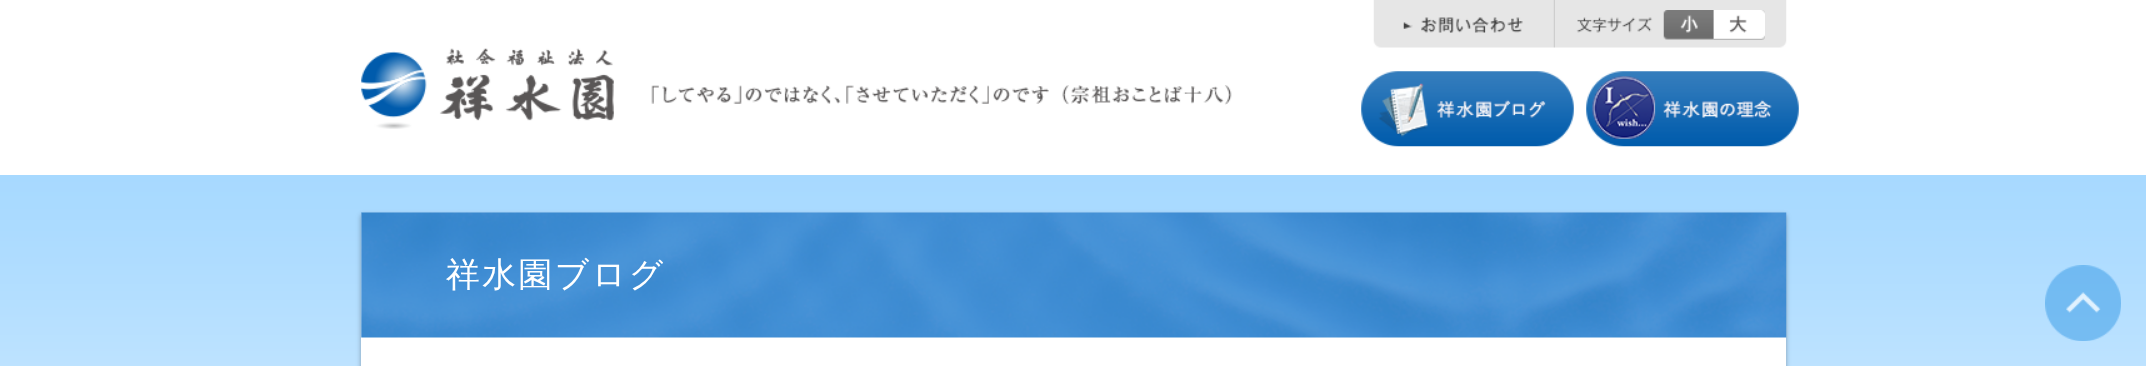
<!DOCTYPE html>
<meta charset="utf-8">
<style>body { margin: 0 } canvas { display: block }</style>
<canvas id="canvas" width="2146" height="366"></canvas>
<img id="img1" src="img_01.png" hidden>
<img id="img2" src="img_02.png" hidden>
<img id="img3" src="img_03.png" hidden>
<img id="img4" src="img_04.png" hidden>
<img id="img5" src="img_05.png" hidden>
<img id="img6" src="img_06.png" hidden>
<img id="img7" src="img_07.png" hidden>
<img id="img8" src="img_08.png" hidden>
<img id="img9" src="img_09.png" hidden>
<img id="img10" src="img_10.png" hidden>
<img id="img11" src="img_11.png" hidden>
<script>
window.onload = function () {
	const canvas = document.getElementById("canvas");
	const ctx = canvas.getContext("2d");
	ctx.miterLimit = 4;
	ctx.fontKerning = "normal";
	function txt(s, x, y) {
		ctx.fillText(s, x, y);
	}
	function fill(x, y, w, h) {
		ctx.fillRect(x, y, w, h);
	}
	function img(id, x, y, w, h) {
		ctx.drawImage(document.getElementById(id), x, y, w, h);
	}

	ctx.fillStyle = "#FFFFFF";
	fill(0, 0, 2146, 366);
	img("img1", 0, 175, 2146, 191);
	img("img2", 1373, 0, 182, 48);
	img("img3", 1555, 0, 232, 48);
	img("img4", 1663, 10, 51, 30);
	img("img5", 1713, 10, 52, 30);
	img("img6", 361, 48, 253, 81);
	img("img7", 651, 85, 581, 20);
	img("img8", 1361, 71, 213, 76);
	img("img9", 1586, 71, 213, 76);
	ctx.fillStyle = "rgba(0, 0, 0, 0.3)";
	ctx.filter = "blur(2.5px)";
	ctx.beginPath();
	ctx.rect(361, 215, 1425, 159);
	ctx.fill();
	ctx.filter = "none";
	ctx.fillStyle = "#FFFFFF";
	fill(361, 213, 1425, 153);
	img("img10", 361, 212, 1426, 126);
	img("img11", 2045, 265, 76, 76);
	ctx.letterSpacing = "2.5px";
	ctx.font = "500 33.75px WenQuanYi Zen Hei";
	txt("祥水園ブログ", 446, 286);
};
</script>
